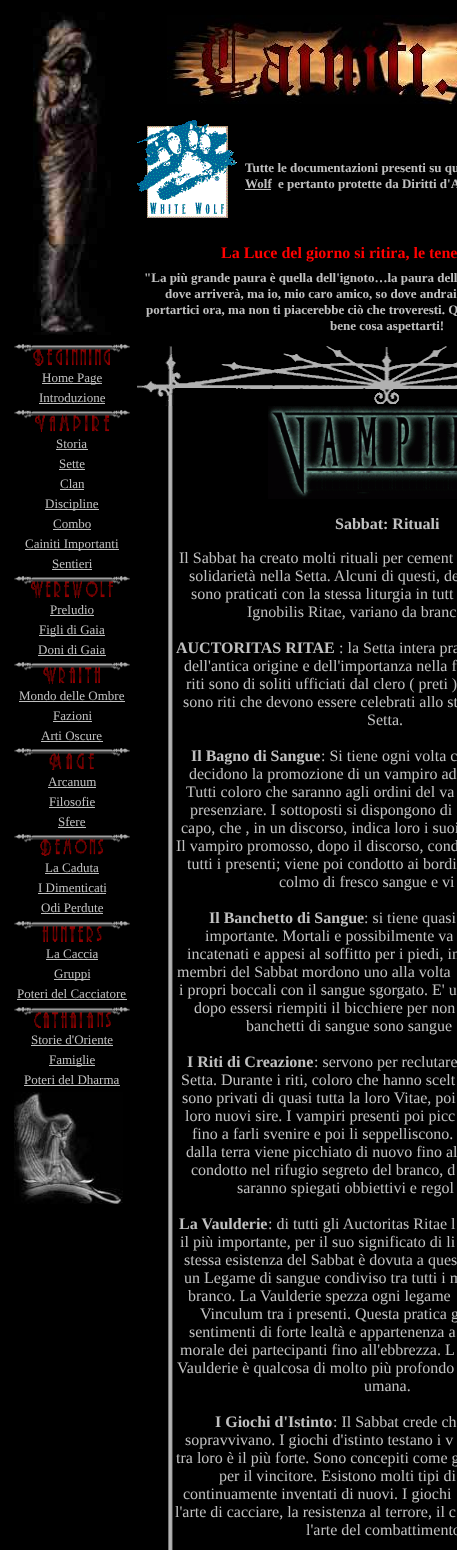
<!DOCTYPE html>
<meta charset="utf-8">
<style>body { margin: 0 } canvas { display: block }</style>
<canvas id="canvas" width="457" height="1550"></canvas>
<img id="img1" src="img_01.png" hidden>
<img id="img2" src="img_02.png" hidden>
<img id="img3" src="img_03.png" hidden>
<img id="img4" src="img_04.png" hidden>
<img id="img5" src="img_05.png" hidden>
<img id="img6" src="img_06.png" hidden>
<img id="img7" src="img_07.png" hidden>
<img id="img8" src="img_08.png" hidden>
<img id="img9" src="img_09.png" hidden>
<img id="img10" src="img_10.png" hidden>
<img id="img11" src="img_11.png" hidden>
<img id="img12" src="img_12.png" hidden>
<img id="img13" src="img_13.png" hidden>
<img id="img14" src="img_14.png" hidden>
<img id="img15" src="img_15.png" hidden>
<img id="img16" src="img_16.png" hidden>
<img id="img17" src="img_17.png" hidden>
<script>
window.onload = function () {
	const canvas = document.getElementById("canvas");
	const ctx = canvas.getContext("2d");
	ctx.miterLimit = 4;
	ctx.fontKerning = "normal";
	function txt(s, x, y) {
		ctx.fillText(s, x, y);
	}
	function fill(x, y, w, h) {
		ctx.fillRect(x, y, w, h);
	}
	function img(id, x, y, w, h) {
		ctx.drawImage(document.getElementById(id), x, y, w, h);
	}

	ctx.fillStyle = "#000000";
	fill(0, 0, 457, 1550);
	img("img1", 33, 12, 78, 323);
	img("img2", 167, 15, 290, 89);
	img("img3", 137, 120, 100, 98);
	ctx.fillStyle = "#C0C0C0";
	fill(245, 189, 26, 1);
	img("img4", 14, 344, 116, 22);
	fill(42, 383, 60, 1);
	fill(39, 403, 66, 1);
	img("img5", 14, 410, 116, 22);
	fill(56, 449, 32, 1);
	fill(59, 469, 26, 1);
	fill(60, 489, 24, 1);
	fill(45, 509, 54, 1);
	fill(53, 529, 38, 1);
	fill(25, 549, 94, 1);
	fill(52, 569, 40, 1);
	img("img6", 14, 576, 116, 22);
	fill(50, 615, 44, 1);
	fill(39, 635, 66, 1);
	fill(38, 655, 68, 1);
	img("img7", 14, 662, 116, 22);
	fill(19, 701, 106, 1);
	fill(53, 721, 39, 1);
	fill(41, 741, 62, 1);
	img("img8", 14, 748, 116, 22);
	fill(48, 787, 48, 1);
	fill(49, 807, 46, 1);
	fill(58, 827, 28, 1);
	img("img9", 14, 834, 116, 22);
	fill(45, 873, 54, 1);
	fill(38, 893, 68, 1);
	fill(41, 913, 62, 1);
	img("img10", 14, 921, 116, 21);
	fill(46, 959, 52, 1);
	fill(54, 979, 36, 1);
	fill(17, 999, 110, 1);
	img("img11", 14, 1007, 116, 21);
	fill(31, 1045, 82, 1);
	fill(49, 1065, 46, 1);
	fill(24, 1085, 96, 1);
	img("img12", 14, 1092, 109, 112);
	img("img13", 137, 362, 29, 44);
	img("img14", 166, 346, 9, 60);
	img("img15", 175, 346, 282, 58);
	img("img16", 168, 406, 5, 1144);
	img("img17", 268, 406, 189, 93);
	ctx.font = "bold 13px Liberation Serif";
	txt("Tutte le documentazioni presenti su qu", 245, 172);
	txt("Wolf", 245, 188);
	txt("e pertanto protette da Diritti d'A", 278, 188);
	ctx.font = "bold 16px Liberation Serif";
	ctx.fillStyle = "#FF0000";
	txt("La Luce del giorno si ritira, le tene", 221, 258);
	ctx.font = "bold 13px Liberation Serif";
	ctx.fillStyle = "#C0C0C0";
	txt("\"La più grande paura è quella dell'ignoto…la paura dell", 144, 282);
	txt("dove arriverà, ma io, mio caro amico, so dove andrai", 165, 298);
	txt("portartici ora, ma non ti piacerebbe ciò che troveresti. Q", 146, 314);
	txt("bene cosa aspettarti!", 330, 330);
	ctx.font = "13px Liberation Serif";
	txt("Home Page", 42, 382);
	txt("Introduzione", 39, 402);
	txt("Storia", 56, 448);
	txt("Sette", 59, 468);
	txt("Clan", 60, 488);
	txt("Discipline", 45, 508);
	txt("Combo", 53, 528);
	txt("Cainiti Importanti", 25, 548);
	txt("Sentieri", 52, 568);
	txt("Preludio", 50, 614);
	txt("Figli di Gaia", 39, 634);
	txt("Doni di Gaia", 38, 654);
	txt("Mondo delle Ombre", 19, 700);
	txt("Fazioni", 53, 720);
	txt("Arti Oscure", 41, 740);
	txt("Arcanum", 48, 786);
	txt("Filosofie", 49, 806);
	txt("Sfere", 58, 826);
	txt("La Caduta", 45, 872);
	txt("I Dimenticati", 38, 892);
	txt("Odi Perdute", 41, 912);
	txt("La Caccia", 46, 958);
	txt("Gruppi", 54, 978);
	txt("Poteri del Cacciatore", 17, 998);
	txt("Storie d'Oriente", 31, 1044);
	txt("Famiglie", 49, 1064);
	txt("Poteri del Dharma", 24, 1084);
	ctx.font = "bold 16px Liberation Serif";
	txt("Sabbat: Rituali", 335, 529);
	ctx.font = "16px Liberation Serif";
	txt("Il Sabbat ha creato molti rituali per cement", 179, 563);
	txt("solidarietà nella Setta. Alcuni di questi, de", 189, 581);
	txt("sono praticati con la stessa liturgia in tutt", 191, 599);
	txt("Ignobilis Ritae, variano da branc", 247, 617);
	ctx.font = "bold 16px Liberation Serif";
	txt("AUCTORITAS RITAE", 176, 653);
	ctx.font = "16px Liberation Serif";
	txt(": la Setta intera pra", 339, 653);
	txt("dell'antica origine e dell'importanza nella f", 184, 671);
	txt("riti sono di soliti ufficiati dal clero ( preti )", 186, 689);
	txt("sono riti che devono essere celebrati allo st", 183, 707);
	txt("Setta.", 367, 725);
	ctx.font = "bold 16px Liberation Serif";
	txt("Il Bagno di Sangue", 191, 761);
	ctx.font = "16px Liberation Serif";
	txt(": Si tiene ogni volta c", 321, 761);
	txt("decidono la promozione di un vampiro ad", 189, 779);
	txt("Tutti coloro che saranno agli ordini del va", 186, 797);
	txt("presenziare. I sottoposti si dispongono di", 190, 815);
	txt("capo, che , in un discorso, indica loro i suoi", 181, 833);
	txt("Il vampiro promosso, dopo il discorso, cond", 176, 851);
	txt("tutti i presenti; viene poi condotto ai bordi", 187, 869);
	txt("colmo di fresco sangue e vi", 279, 887);
	ctx.font = "bold 16px Liberation Serif";
	txt("Il Banchetto di Sangue", 209, 923);
	ctx.font = "16px Liberation Serif";
	txt(": si tiene quasi", 364, 923);
	txt("importante. Mortali e possibilmente va", 205, 941);
	txt("incatenati e appesi al soffitto per i piedi, in", 187, 959);
	txt("membri del Sabbat mordono uno alla volta", 177, 977);
	txt("i propri boccali con il sangue sgorgato. E' u", 179, 995);
	txt("dopo essersi riempiti il bicchiere per non", 194, 1013);
	txt("banchetti di sangue sono sangue", 246, 1031);
	ctx.font = "bold 16px Liberation Serif";
	txt("I Riti di Creazione", 187, 1067);
	ctx.font = "16px Liberation Serif";
	txt(": servono per reclutare", 314, 1067);
	txt("Setta. Durante i riti, coloro che hanno scelt", 181, 1085);
	txt("sono privati di quasi tutta la loro Vitae, poi", 182, 1103);
	txt("loro nuovi sire. I vampiri presenti poi picc", 185, 1121);
	txt("fino a farli svenire e poi li seppelliscono.", 192, 1139);
	txt("dalla terra viene picchiato di nuovo fino al", 186, 1157);
	txt("condotto nel rifugio segreto del branco, d", 191, 1175);
	txt("saranno spiegati obbiettivi e regol", 237, 1193);
	ctx.font = "bold 16px Liberation Serif";
	txt("La Vaulderie", 179, 1229);
	ctx.font = "16px Liberation Serif";
	txt(": di tutti gli Auctoritas Ritae l", 268, 1229);
	txt("il più importante, per il suo significato di li", 180, 1247);
	txt("stessa esistenza del Sabbat è dovuta a ques", 184, 1265);
	txt("un Legame di sangue condiviso tra tutti i m", 184, 1283);
	txt("branco. La Vaulderie spezza ogni legame", 188, 1301);
	txt("Vinculum tra i presenti. Questa pratica g", 200, 1319);
	txt("sentimenti di forte lealtà e appartenenza a", 189, 1337);
	txt("morale dei partecipanti fino all'ebbrezza. L", 180, 1355);
	txt("Vaulderie è qualcosa di molto più profondo", 177, 1373);
	txt("umana.", 364, 1391);
	ctx.font = "bold 16px Liberation Serif";
	txt("I Giochi d'Istinto", 215, 1427);
	ctx.font = "16px Liberation Serif";
	txt(": Il Sabbat crede ch", 333, 1427);
	txt("sopravvivano. I giochi d'istinto testano i v", 185, 1445);
	txt("tra loro è il più forte. Sono concepiti come g", 176, 1463);
	txt("per il vincitore. Esistono molti tipi di", 219, 1481);
	txt("continuamente inventati di nuovi. I giochi", 183, 1499);
	txt("l'arte di cacciare, la resistenza al terrore, il c", 175, 1517);
	txt("l'arte del combattimento", 306, 1535);
};
</script>
